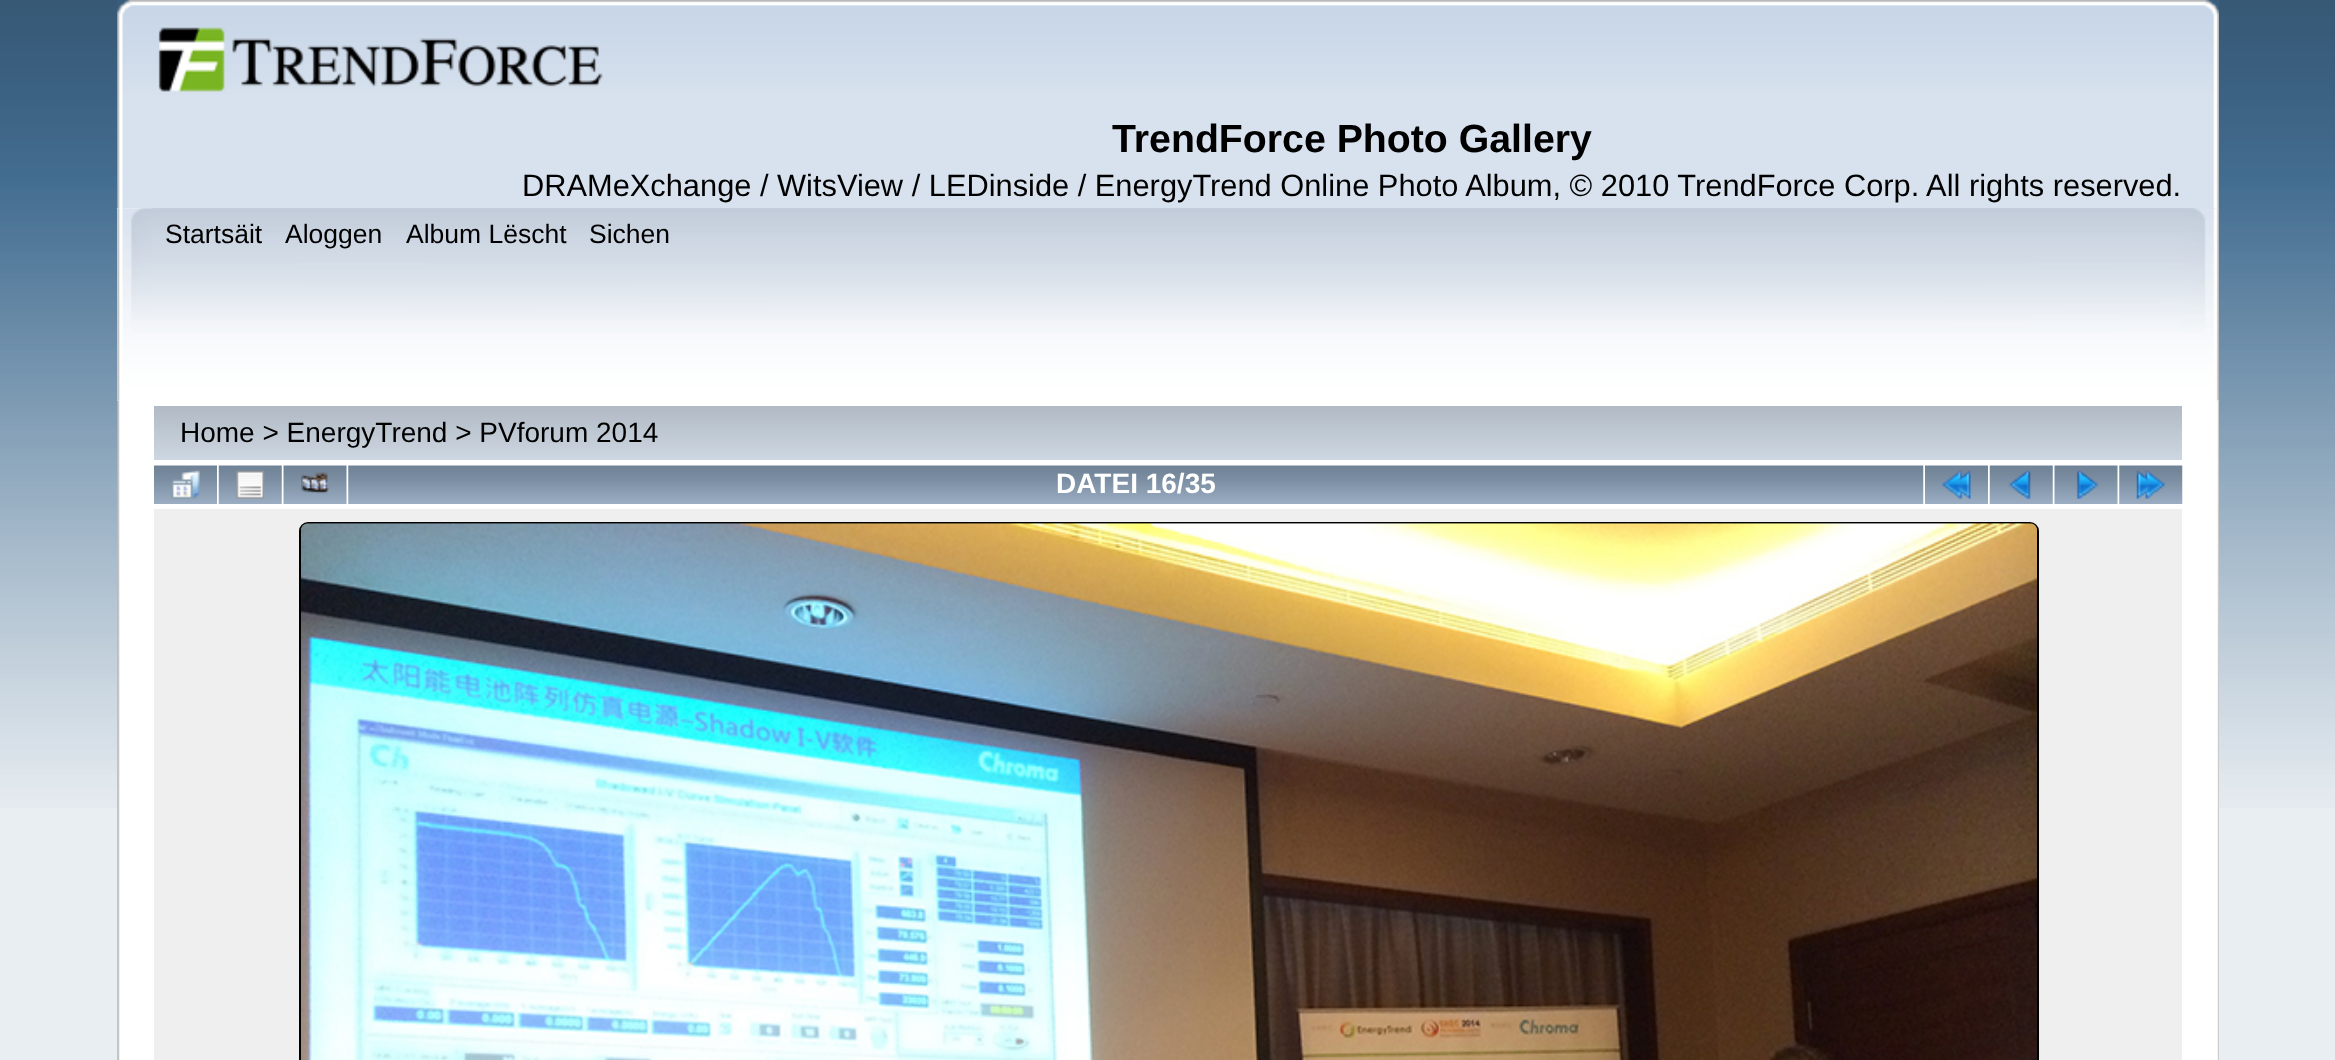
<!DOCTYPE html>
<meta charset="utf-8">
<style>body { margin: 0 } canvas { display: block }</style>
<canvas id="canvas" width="2335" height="1060"></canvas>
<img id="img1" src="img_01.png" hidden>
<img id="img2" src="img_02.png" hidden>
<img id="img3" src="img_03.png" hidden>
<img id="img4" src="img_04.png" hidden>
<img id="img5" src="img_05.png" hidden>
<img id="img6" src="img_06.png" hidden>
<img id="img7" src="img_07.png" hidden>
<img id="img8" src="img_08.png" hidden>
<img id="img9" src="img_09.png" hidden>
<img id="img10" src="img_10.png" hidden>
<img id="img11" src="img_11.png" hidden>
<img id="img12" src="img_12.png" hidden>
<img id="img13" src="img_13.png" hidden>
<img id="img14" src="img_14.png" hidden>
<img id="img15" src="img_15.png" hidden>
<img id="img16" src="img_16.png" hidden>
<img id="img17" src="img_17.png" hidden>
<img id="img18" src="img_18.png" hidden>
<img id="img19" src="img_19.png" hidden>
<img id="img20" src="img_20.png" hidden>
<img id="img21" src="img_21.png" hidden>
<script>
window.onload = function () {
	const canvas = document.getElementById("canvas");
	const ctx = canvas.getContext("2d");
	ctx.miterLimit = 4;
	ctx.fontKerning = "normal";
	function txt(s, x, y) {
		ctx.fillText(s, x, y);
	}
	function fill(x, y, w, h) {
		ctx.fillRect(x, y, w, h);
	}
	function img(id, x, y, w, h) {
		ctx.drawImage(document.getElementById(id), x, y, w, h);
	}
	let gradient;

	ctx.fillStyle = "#E9EEF2";
	fill(0, 0, 2335, 1060);
	img("img1", 0, 0, 2335, 808);
	img("img2", 117, 0, 36, 208);
	img("img3", 152, 0, 2067, 208);
	img("img4", 158, 27, 445, 65);
	ctx.fillStyle = "#FEFEFE";
	fill(117, 208, 2102, 193);
	img("img5", 117, 208, 2102, 193);
	img("img6", 152, 208, 2067, 193);
	img("img7", 117, 400, 2102, 660);
	img("img8", 2217, 401, 2, 659);
	gradient = ctx.createLinearGradient(1168, 406, 1168, 460);
	gradient.addColorStop(0, "#B1BAC4");
	gradient.addColorStop(1, "#CDD7E1");
	ctx.fillStyle = gradient;
	fill(154, 406, 2028, 54);
	img("img9", 154, 465, 63, 39);
	img("img10", 171, 470, 29, 29);
	img("img11", 218, 465, 64, 39);
	img("img12", 236, 470, 29, 29);
	img("img13", 283, 465, 64, 39);
	img("img14", 301, 472, 28, 22);
	img("img15", 348, 465, 1576, 39);
	img("img9", 1925, 465, 63, 39);
	img("img16", 1942, 470, 29, 29);
	img("img11", 1989, 465, 64, 39);
	img("img17", 2008, 470, 23, 29);
	img("img13", 2054, 465, 64, 39);
	img("img18", 2076, 470, 23, 29);
	img("img19", 2119, 465, 64, 39);
	img("img20", 2136, 470, 29, 29);
	ctx.fillStyle = "#EFEFEF";
	fill(154, 509, 2028, 551);
	ctx.beginPath();
	ctx.roundRect(300, 523, 1738, 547, 8);
	ctx.strokeStyle = "#000000";
	ctx.lineWidth = 2;
	ctx.stroke();
	img("img21", 301, 523, 1736, 537);
	ctx.font = "bold 39.25px Liberation Sans";
	ctx.fillStyle = "#000000";
	txt("TrendForce Photo Gallery", 1112, 152);
	ctx.font = "30.8px Liberation Sans";
	txt("DRAMeXchange / WitsView / LEDinside / EnergyTrend Online Photo Album, © 2010 TrendForce Corp. All rights reserved.", 522, 196);
	ctx.font = "26.5px Liberation Sans";
	txt("Startsäit", 165, 243);
	txt("Aloggen", 285, 243);
	txt("Album Lëscht", 406, 243);
	txt("Sichen", 589, 243);
	ctx.font = "28px Liberation Sans";
	txt("Home > EnergyTrend > PVforum 2014", 180, 442);
	ctx.font = "bold 28px Liberation Sans";
	ctx.fillStyle = "#FFFFFF";
	txt("DATEI 16/35", 1056, 493);
};
</script>
